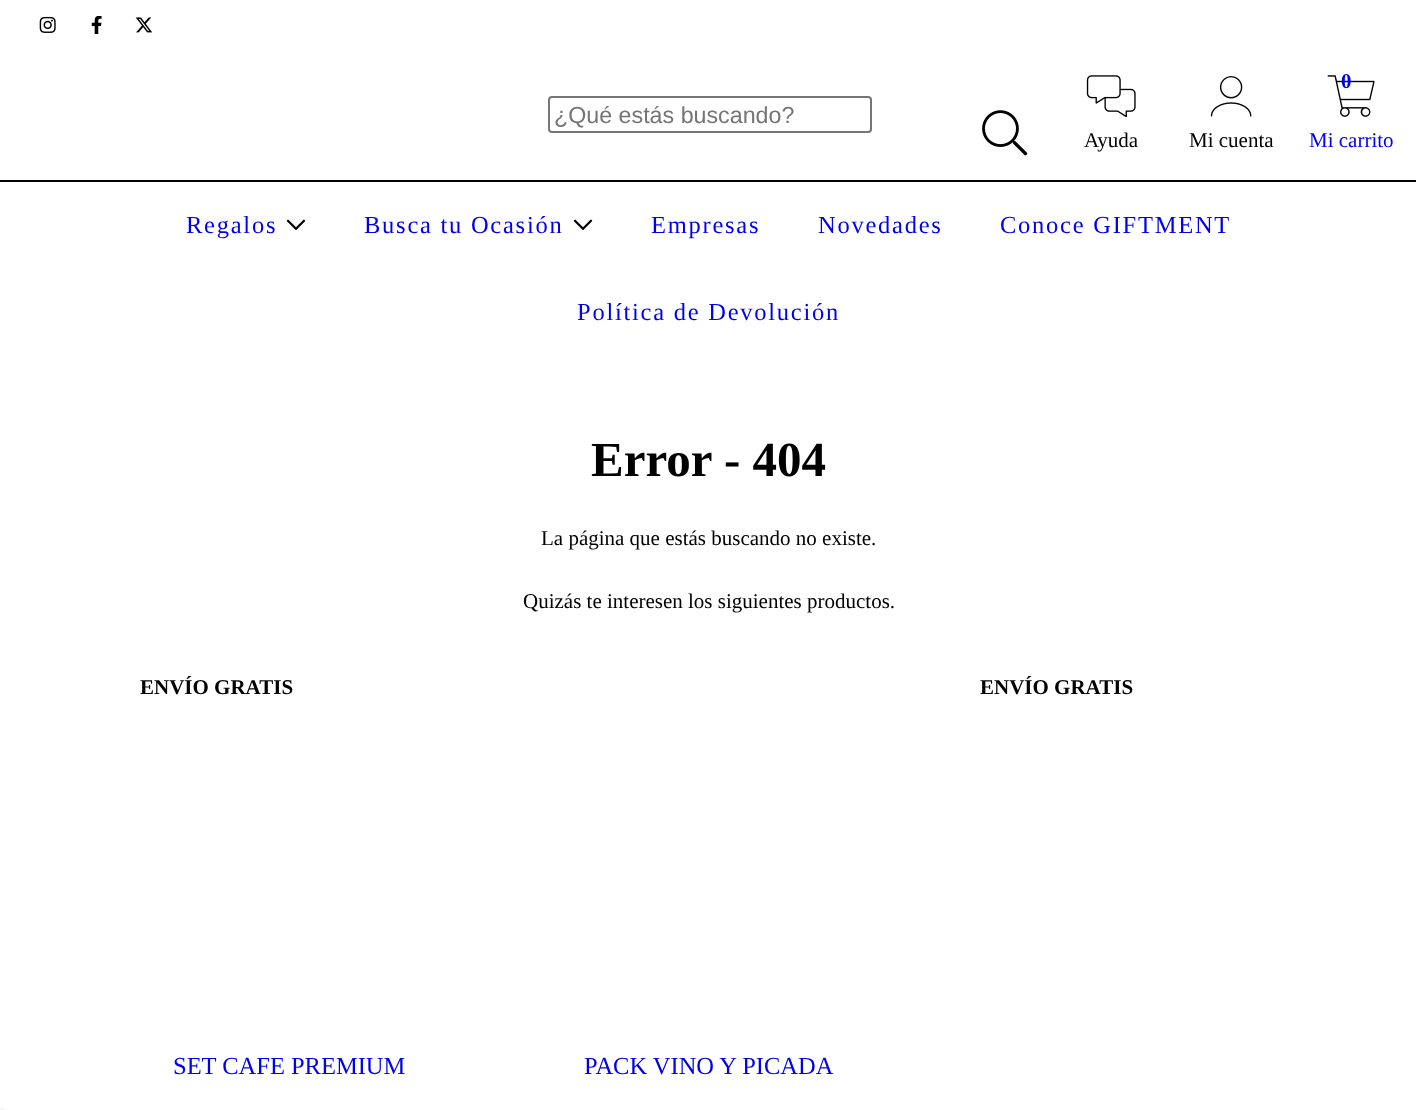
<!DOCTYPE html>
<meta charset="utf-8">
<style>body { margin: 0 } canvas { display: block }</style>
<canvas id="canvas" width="1416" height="1110"></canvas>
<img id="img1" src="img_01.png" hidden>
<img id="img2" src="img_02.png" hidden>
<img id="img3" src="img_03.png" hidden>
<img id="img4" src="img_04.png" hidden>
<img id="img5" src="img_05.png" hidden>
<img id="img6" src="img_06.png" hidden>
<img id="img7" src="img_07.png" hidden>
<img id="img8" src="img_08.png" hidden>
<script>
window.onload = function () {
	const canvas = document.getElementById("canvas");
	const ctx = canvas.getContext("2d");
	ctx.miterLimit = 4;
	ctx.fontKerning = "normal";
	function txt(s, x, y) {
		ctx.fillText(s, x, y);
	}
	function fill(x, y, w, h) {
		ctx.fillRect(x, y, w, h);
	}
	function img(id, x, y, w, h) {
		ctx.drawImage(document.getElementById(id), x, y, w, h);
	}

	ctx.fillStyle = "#FFFFFF";
	fill(0, 0, 1416, 1110);
	img("img1", 39, 16, 17, 17);
	img("img2", 91, 16, 11, 18);
	img("img3", 135, 17, 18, 16);
	ctx.beginPath();
	ctx.roundRect(549, 97, 322, 35, 3);
	ctx.strokeStyle = "#767676";
	ctx.lineWidth = 2;
	ctx.stroke();
	img("img4", 982, 110, 46, 46);
	img("img5", 1086, 75, 50, 42);
	img("img6", 1210, 76, 42, 41);
	img("img7", 1327, 75, 48, 42);
	ctx.fillStyle = "#000000";
	fill(0, 180, 1416, 2);
	img("img8", 286, 219, 20, 12);
	img("img8", 573, 219, 20, 12);
	ctx.fillStyle = "#F5F5F5";
	fill(0, 1108, 4, 2);
	ctx.font = "23.25px Liberation Sans";
	ctx.fillStyle = "#757575";
	txt("¿Qué estás buscando?", 554, 123);
	ctx.font = "21px Liberation Serif";
	ctx.fillStyle = "#000000";
	txt("Ayuda", 1084, 147);
	txt("Mi cuenta", 1189, 147);
	ctx.font = "bold 21px Liberation Serif";
	ctx.fillStyle = "#0000EE";
	txt("0", 1341, 88);
	ctx.font = "21px Liberation Serif";
	txt("Mi carrito", 1309, 147);
	ctx.letterSpacing = "1.75px";
	ctx.font = "24.5px Liberation Serif";
	txt("Regalos", 186, 233);
	txt("Busca tu Ocasión", 364, 233);
	txt("Empresas", 651, 233);
	txt("Novedades", 818, 233);
	txt("Conoce GIFTMENT", 1000, 233);
	txt("Política de Devolución", 577, 320);
	ctx.letterSpacing = "0px";
	ctx.font = "bold 49px Liberation Serif";
	ctx.fillStyle = "#000000";
	txt("Error - 404", 591, 476);
	ctx.font = "21px Liberation Serif";
	txt("La página que estás buscando no existe.", 541, 545);
	txt("Quizás te interesen los siguientes productos.", 523, 608);
	ctx.font = "bold 21px Liberation Serif";
	txt("ENVÍO GRATIS", 140, 694);
	ctx.font = "24.5px Liberation Serif";
	ctx.fillStyle = "#0000EE";
	txt("SET CAFE PREMIUM", 173, 1074);
	ctx.font = "bold 21px Liberation Serif";
	ctx.fillStyle = "#000000";
	txt("ENVÍO GRATIS", 980, 694);
	ctx.font = "24.5px Liberation Serif";
	ctx.fillStyle = "#0000EE";
	txt("PACK VINO Y PICADA", 584, 1074);
};
</script>
